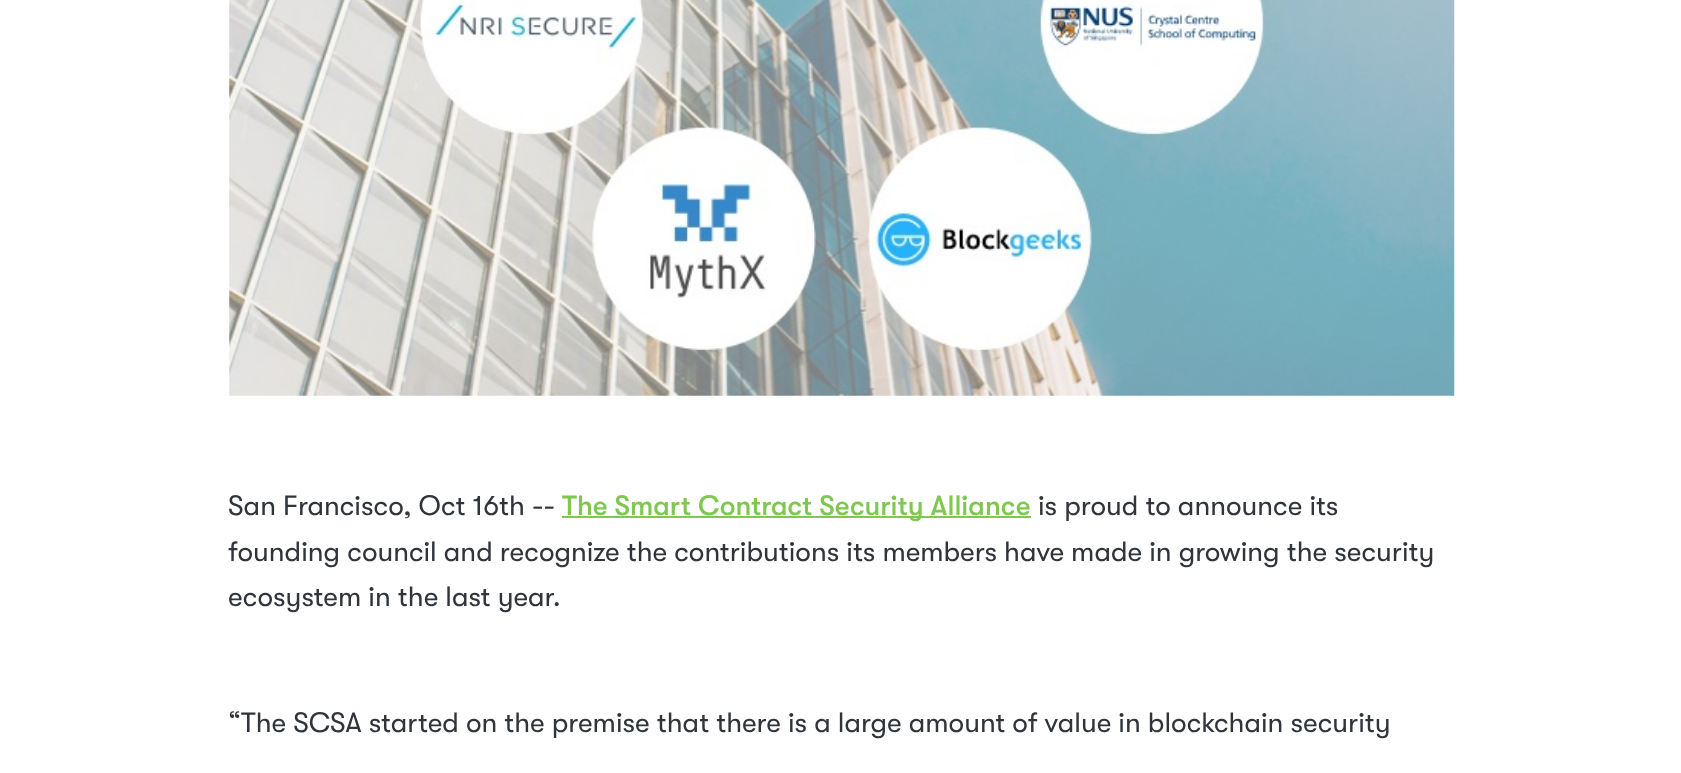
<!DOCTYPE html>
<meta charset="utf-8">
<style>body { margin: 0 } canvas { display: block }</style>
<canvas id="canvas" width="1681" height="773"></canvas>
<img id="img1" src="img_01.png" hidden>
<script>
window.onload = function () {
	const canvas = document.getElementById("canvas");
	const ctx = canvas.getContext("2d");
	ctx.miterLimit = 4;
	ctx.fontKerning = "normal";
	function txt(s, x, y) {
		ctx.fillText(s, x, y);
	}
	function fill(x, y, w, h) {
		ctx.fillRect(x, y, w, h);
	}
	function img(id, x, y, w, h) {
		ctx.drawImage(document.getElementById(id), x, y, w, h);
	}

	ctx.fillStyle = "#FFFFFF";
	fill(0, 0, 1681, 773);
	img("img1", 229, 0, 1226, 396);
	ctx.fillStyle = "#7FC850";
	fill(562, 516, 469, 2);
	ctx.font = "28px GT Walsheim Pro";
	ctx.fillStyle = "#30343B";
	txt("San Francisco, Oct 16th --", 228, 515);
	ctx.font = "500 28px GT Walsheim Pro";
	ctx.fillStyle = "#7FC850";
	txt("The Smart Contract Security Alliance", 562, 515);
	ctx.font = "28px GT Walsheim Pro";
	ctx.fillStyle = "#30343B";
	txt("is proud to announce its", 1038, 515);
	txt("founding council and recognize the contributions its members have made in growing the security", 228, 561);
	txt("ecosystem in the last year.", 228, 606);
	txt("“The SCSA started on the premise that there is a large amount of value in blockchain security", 228, 732);
};
</script>
